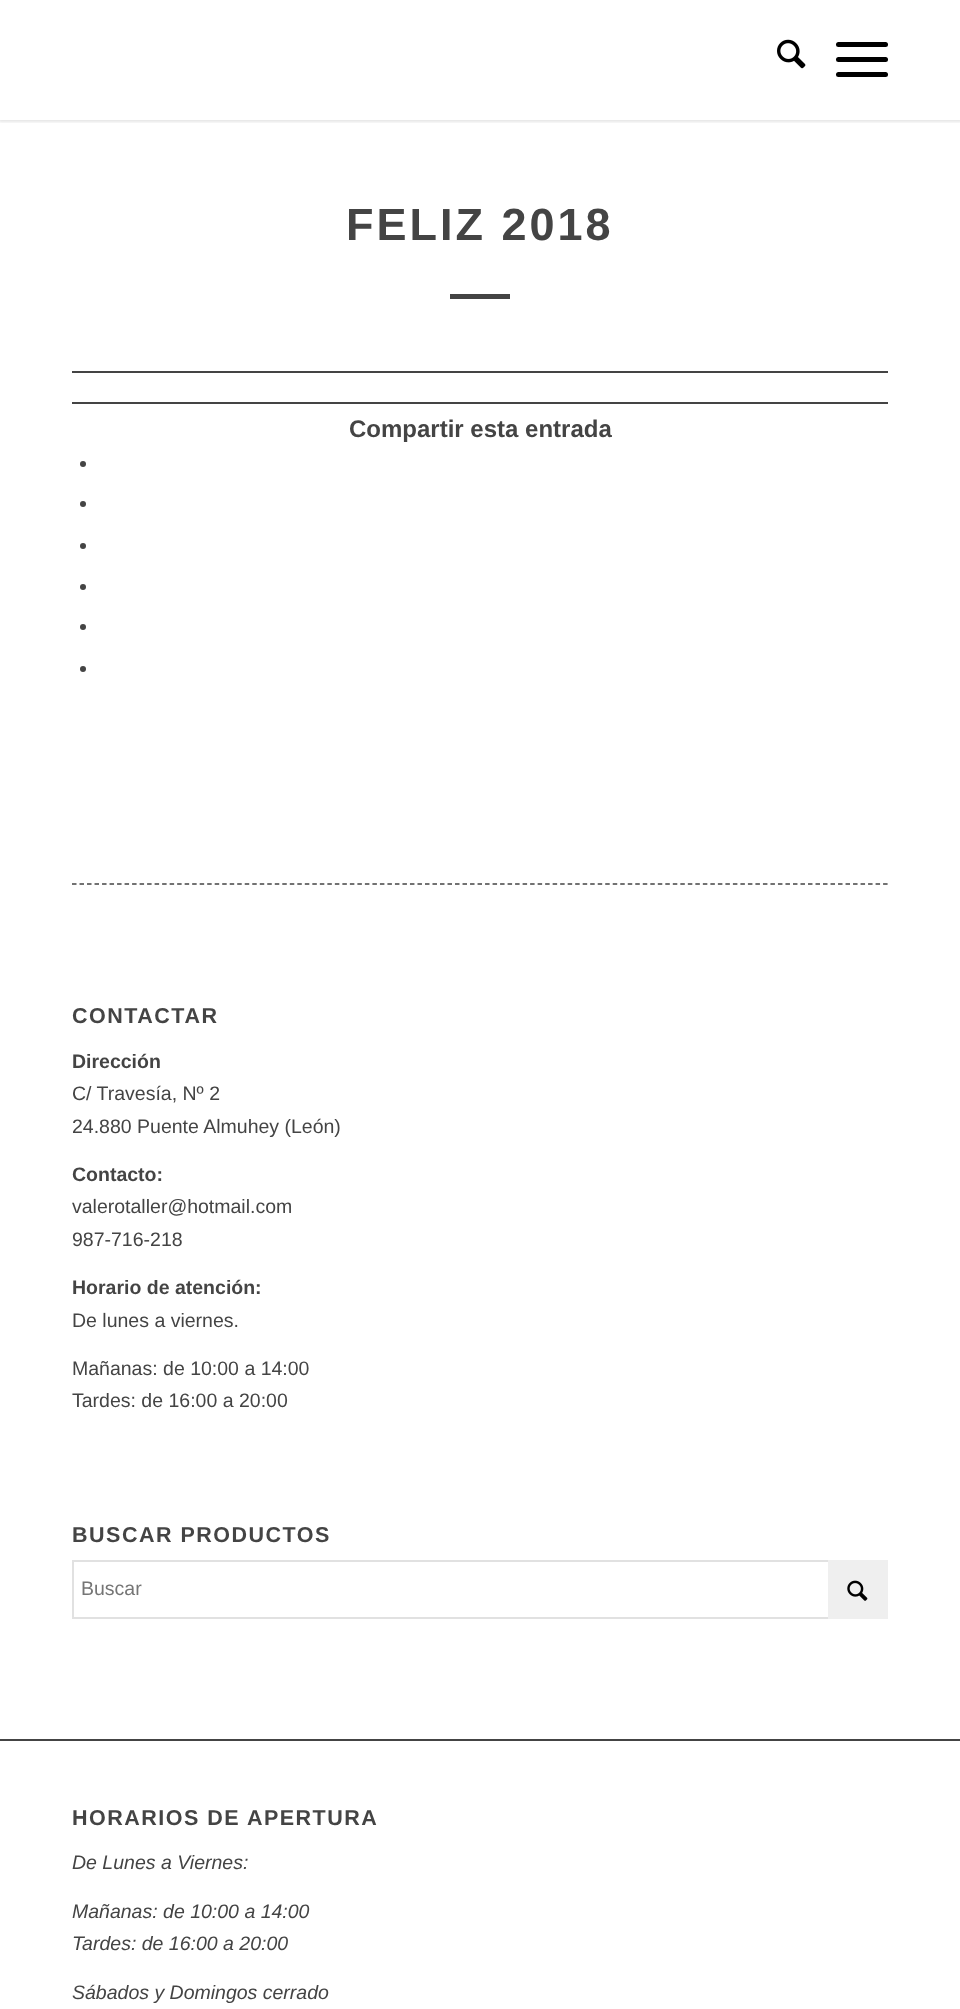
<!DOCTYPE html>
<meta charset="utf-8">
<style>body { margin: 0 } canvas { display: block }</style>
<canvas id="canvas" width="960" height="2009"></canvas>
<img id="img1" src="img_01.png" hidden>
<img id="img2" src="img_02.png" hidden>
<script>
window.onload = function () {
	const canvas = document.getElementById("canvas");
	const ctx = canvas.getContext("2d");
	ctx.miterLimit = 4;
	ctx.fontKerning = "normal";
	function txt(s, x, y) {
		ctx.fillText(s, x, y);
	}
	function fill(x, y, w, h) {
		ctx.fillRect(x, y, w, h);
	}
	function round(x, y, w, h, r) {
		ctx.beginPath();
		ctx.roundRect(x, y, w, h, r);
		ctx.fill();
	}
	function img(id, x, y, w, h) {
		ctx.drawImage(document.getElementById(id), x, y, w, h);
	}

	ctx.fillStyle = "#FFFFFF";
	fill(0, 0, 960, 2009);
	ctx.save();
	ctx.beginPath();
	ctx.rect(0, 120, 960, 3);
	ctx.clip();
	ctx.fillStyle = "rgba(0, 0, 0, 0.1)";
	ctx.filter = "blur(1.5px)";
	ctx.beginPath();
	ctx.rect(-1, -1, 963, 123);
	ctx.fill();
	ctx.filter = "none";
	ctx.restore();
	img("img1", 777, 39, 29, 30);
	ctx.fillStyle = "#000000";
	round(836, 57, 52, 5, 2.5);
	round(836, 42, 52, 5, 2.5);
	round(836, 72, 52, 5, 2.5);
	ctx.fillStyle = "#444444";
	fill(450, 294, 60, 5);
	fill(72, 371, 816, 2);
	fill(72, 402, 816, 2);
	ctx.beginPath();
	ctx.arc(83, 464, 3, 0, Math.PI * 2);
	ctx.fill();
	ctx.beginPath();
	ctx.arc(83, 504, 3, 0, Math.PI * 2);
	ctx.fill();
	ctx.beginPath();
	ctx.arc(83, 546, 3, 0, Math.PI * 2);
	ctx.fill();
	ctx.beginPath();
	ctx.arc(83, 587, 3, 0, Math.PI * 2);
	ctx.fill();
	ctx.beginPath();
	ctx.arc(83, 627, 3, 0, Math.PI * 2);
	ctx.fill();
	ctx.beginPath();
	ctx.arc(83, 669, 3, 0, Math.PI * 2);
	ctx.fill();
	ctx.beginPath();
	ctx.moveTo(72, 884);
	ctx.lineTo(888, 884);
	ctx.strokeStyle = "#444444";
	ctx.lineWidth = 1.5;
	ctx.setLineDash([4.5, 3.01]);
	ctx.stroke();
	ctx.strokeStyle = "#E1E1E1";
	ctx.lineWidth = 2;
	ctx.setLineDash([]);
	ctx.strokeRect(73, 1561, 814, 57);
	ctx.fillStyle = "#EFEFEF";
	fill(828, 1560, 60, 59);
	img("img2", 847, 1580, 21, 21);
	ctx.fillStyle = "#444444";
	fill(0, 1739, 960, 2);
	ctx.letterSpacing = "3px";
	ctx.font = "bold 45px Liberation Sans";
	txt("FELIZ 2018", 346, 240);
	ctx.letterSpacing = "0px";
	ctx.font = "bold 24px Liberation Sans";
	txt("Compartir esta entrada", 349, 437);
	ctx.letterSpacing = "1.5px";
	ctx.font = "bold 21.5px Liberation Sans";
	txt("CONTACTAR", 72, 1023);
	ctx.letterSpacing = "0px";
	ctx.font = "bold 19.5px Liberation Sans";
	txt("Dirección", 72, 1068);
	ctx.font = "19.5px Liberation Sans";
	txt("C/ Travesía, Nº 2", 72, 1100);
	txt("24.880 Puente Almuhey (León)", 72, 1133);
	ctx.font = "bold 19.5px Liberation Sans";
	txt("Contacto:", 72, 1181);
	ctx.font = "19.5px Liberation Sans";
	txt("valerotaller@hotmail.com", 72, 1213);
	txt("987-716-218", 72, 1246);
	ctx.font = "bold 19.5px Liberation Sans";
	txt("Horario de atención:", 72, 1294);
	ctx.font = "19.5px Liberation Sans";
	txt("De lunes a viernes.", 72, 1327);
	txt("Mañanas: de 10:00 a 14:00", 72, 1375);
	txt("Tardes: de 16:00 a 20:00", 72, 1407);
	ctx.letterSpacing = "1.5px";
	ctx.font = "bold 21.5px Liberation Sans";
	txt("BUSCAR PRODUCTOS", 72, 1542);
	ctx.letterSpacing = "0px";
	ctx.font = "19.5px Liberation Sans";
	ctx.fillStyle = "#757575";
	txt("Buscar", 81, 1595);
	ctx.letterSpacing = "1.5px";
	ctx.font = "bold 21.5px Liberation Sans";
	ctx.fillStyle = "#444444";
	txt("HORARIOS DE APERTURA", 72, 1825);
	ctx.letterSpacing = "0px";
	ctx.font = "italic 19.5px Liberation Sans";
	txt("De Lunes a Viernes:", 72, 1869);
	txt("Mañanas: de 10:00 a 14:00", 72, 1918);
	txt("Tardes: de 16:00 a 20:00", 72, 1950);
	txt("Sábados y Domingos cerrado", 72, 1999);
};
</script>
